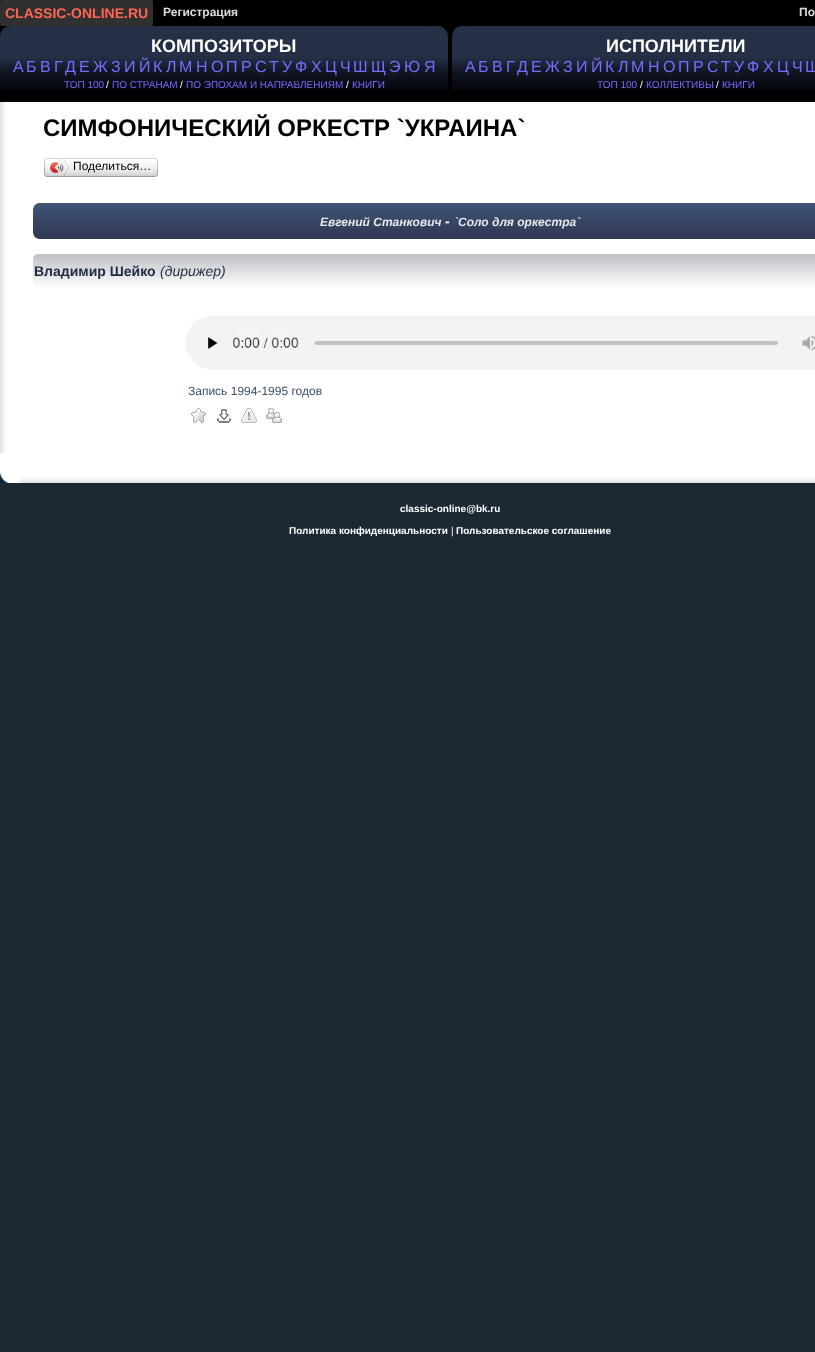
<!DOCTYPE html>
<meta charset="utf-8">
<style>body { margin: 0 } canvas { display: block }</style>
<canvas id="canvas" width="815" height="1352"></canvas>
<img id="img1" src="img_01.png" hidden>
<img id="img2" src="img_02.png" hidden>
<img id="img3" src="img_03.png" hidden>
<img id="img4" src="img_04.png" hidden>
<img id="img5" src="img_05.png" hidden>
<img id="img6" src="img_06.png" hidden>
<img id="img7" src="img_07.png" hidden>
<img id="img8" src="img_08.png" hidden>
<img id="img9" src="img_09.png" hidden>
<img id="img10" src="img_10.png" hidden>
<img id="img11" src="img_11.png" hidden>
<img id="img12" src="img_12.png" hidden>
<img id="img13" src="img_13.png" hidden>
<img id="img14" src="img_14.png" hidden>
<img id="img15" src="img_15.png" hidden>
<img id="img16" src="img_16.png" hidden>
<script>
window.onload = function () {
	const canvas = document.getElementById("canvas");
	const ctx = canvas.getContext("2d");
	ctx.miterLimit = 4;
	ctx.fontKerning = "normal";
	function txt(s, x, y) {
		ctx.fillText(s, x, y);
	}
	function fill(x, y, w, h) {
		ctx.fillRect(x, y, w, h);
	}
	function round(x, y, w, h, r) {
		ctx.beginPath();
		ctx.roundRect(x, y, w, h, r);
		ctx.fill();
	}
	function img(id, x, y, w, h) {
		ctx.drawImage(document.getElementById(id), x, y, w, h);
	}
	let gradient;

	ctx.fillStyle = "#1C2834";
	fill(0, 0, 815, 1352);
	ctx.fillStyle = "#000000";
	fill(0, 0, 815, 102);
	ctx.fillStyle = "#303030";
	round(0, 0, 153, 26, 2);
	img("img1", 0, 26, 448, 64);
	img("img2", 452, 26, 363, 64);
	ctx.fillStyle = "#FFFFFF";
	fill(0, 102, 815, 381);
	img("img3", 0, 102, 6, 351);
	img("img4", 47, 158, 108, 19);
	img("img5", 44, 158, 3, 19);
	img("img6", 50, 159, 20, 17);
	img("img7", 155, 158, 3, 19);
	gradient = ctx.createLinearGradient(450, 203, 450, 239);
	gradient.addColorStop(0, "#3F5475");
	gradient.addColorStop(1, "#2F3753");
	ctx.fillStyle = gradient;
	round(33, 203, 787, 36, 5);
	img("img8", 33, 203, 6, 7);
	img("img9", 33, 232, 6, 7);
	gradient = ctx.createLinearGradient(450, 254, 450, 288);
	gradient.addColorStop(0, "#BEC0C5");
	gradient.addColorStop(1, "#FFFFFF");
	ctx.fillStyle = gradient;
	round(33, 254, 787, 34, 5);
	img("img10", 185, 315, 630, 55);
	img("img11", 191, 408, 15, 15);
	img("img12", 217, 409, 14, 14);
	img("img13", 241, 408, 16, 15);
	img("img14", 266, 408, 16, 15);
	img("img15", 0, 471, 9, 12);
	img("img16", 20, 477, 795, 6);
	ctx.font = "bold 14px Liberation Sans";
	ctx.fillStyle = "#FF6550";
	txt("CLASSIC-ONLINE.RU", 5, 18);
	ctx.font = "bold 12px Liberation Sans";
	ctx.fillStyle = "#DDDDDD";
	txt("Регистрация", 163, 16);
	txt("По", 799, 16);
	ctx.font = "bold 18px Liberation Sans";
	ctx.fillStyle = "#FFFFFF";
	txt("КОМПОЗИТОРЫ", 151, 52);
	ctx.font = "16px Liberation Sans";
	ctx.fillStyle = "#796BFD";
	txt("А", 13, 72);
	txt("Б", 26, 72);
	txt("В", 40, 72);
	txt("Г", 54, 72);
	txt("Д", 65, 72);
	txt("Е", 79, 72);
	txt("Ж", 93, 72);
	txt("З", 111, 72);
	txt("И", 124, 72);
	txt("Й", 139, 72);
	txt("К", 153, 72);
	txt("Л", 166, 72);
	txt("М", 179, 72);
	txt("Н", 196, 72);
	txt("О", 211, 72);
	txt("П", 226, 72);
	txt("Р", 241, 72);
	txt("С", 255, 72);
	txt("Т", 269, 72);
	txt("У", 282, 72);
	txt("Ф", 295, 72);
	txt("Х", 311, 72);
	txt("Ц", 325, 72);
	txt("Ч", 340, 72);
	txt("Ш", 353, 72);
	txt("Щ", 371, 72);
	txt("Э", 389, 72);
	txt("Ю", 404, 72);
	txt("Я", 424, 72);
	ctx.font = "10px Liberation Sans";
	txt("ТОП 100", 64, 88);
	ctx.fillStyle = "#FFFFFF";
	txt("/", 106, 88);
	ctx.fillStyle = "#796BFD";
	txt("ПО СТРАНАМ", 112, 88);
	ctx.fillStyle = "#FFFFFF";
	txt("/", 180, 88);
	ctx.fillStyle = "#796BFD";
	txt("ПО ЭПОХАМ И НАПРАВЛЕНИЯМ", 186, 88);
	ctx.fillStyle = "#FFFFFF";
	txt("/", 346, 88);
	ctx.fillStyle = "#796BFD";
	txt("КНИГИ", 352, 88);
	ctx.font = "bold 18px Liberation Sans";
	ctx.fillStyle = "#FFFFFF";
	txt("ИСПОЛНИТЕЛИ", 606, 52);
	ctx.font = "16px Liberation Sans";
	ctx.fillStyle = "#796BFD";
	txt("А", 465, 72);
	txt("Б", 478, 72);
	txt("В", 492, 72);
	txt("Г", 506, 72);
	txt("Д", 517, 72);
	txt("Е", 531, 72);
	txt("Ж", 545, 72);
	txt("З", 563, 72);
	txt("И", 576, 72);
	txt("Й", 591, 72);
	txt("К", 605, 72);
	txt("Л", 618, 72);
	txt("М", 631, 72);
	txt("Н", 648, 72);
	txt("О", 663, 72);
	txt("П", 678, 72);
	txt("Р", 693, 72);
	txt("С", 707, 72);
	txt("Т", 721, 72);
	txt("У", 734, 72);
	txt("Ф", 747, 72);
	txt("Х", 763, 72);
	txt("Ц", 777, 72);
	txt("Ч", 792, 72);
	txt("Ш", 805, 72);
	ctx.font = "10px Liberation Sans";
	txt("ТОП 100", 597, 88);
	ctx.fillStyle = "#FFFFFF";
	txt("/", 640, 88);
	ctx.fillStyle = "#796BFD";
	txt("КОЛЛЕКТИВЫ", 646, 88);
	ctx.fillStyle = "#FFFFFF";
	txt("/", 716, 88);
	ctx.fillStyle = "#796BFD";
	txt("КНИГИ", 722, 88);
	ctx.font = "bold 24px Liberation Sans";
	ctx.fillStyle = "#000000";
	txt("СИМФОНИЧЕСКИЙ ОРКЕСТР `УКРАИНА`", 43, 136);
	ctx.font = "12px Liberation Sans";
	txt("Поделиться…", 73, 170);
	ctx.font = "italic bold 12px Liberation Sans";
	ctx.fillStyle = "#E8E9EC";
	txt("Евгений Станкович", 320, 226);
	ctx.font = "italic bold 14px Liberation Sans";
	ctx.fillStyle = "#FFFFFF";
	txt("-", 445, 226);
	ctx.font = "italic bold 12px Liberation Sans";
	ctx.fillStyle = "#E8E9EC";
	txt("`Соло для оркестра`", 454, 226);
	ctx.font = "bold 14px Liberation Sans";
	ctx.fillStyle = "#1F2B43";
	txt("Владимир Шейко", 34, 276);
	ctx.font = "italic 14px Liberation Sans";
	txt("(дирижер)", 160, 276);
	ctx.font = "12px Liberation Sans";
	ctx.fillStyle = "#395268";
	txt("Запись 1994-1995 годов", 188, 395);
	ctx.font = "bold 10px Liberation Sans";
	ctx.fillStyle = "#FFFFFF";
	txt("classic-online@bk.ru", 400, 512);
	txt("Политика конфиденциальности", 289, 534);
	ctx.font = "10px Liberation Sans";
	txt("|", 451, 534);
	ctx.font = "bold 10px Liberation Sans";
	txt("Пользовательское соглашение", 456, 534);
};
</script>
